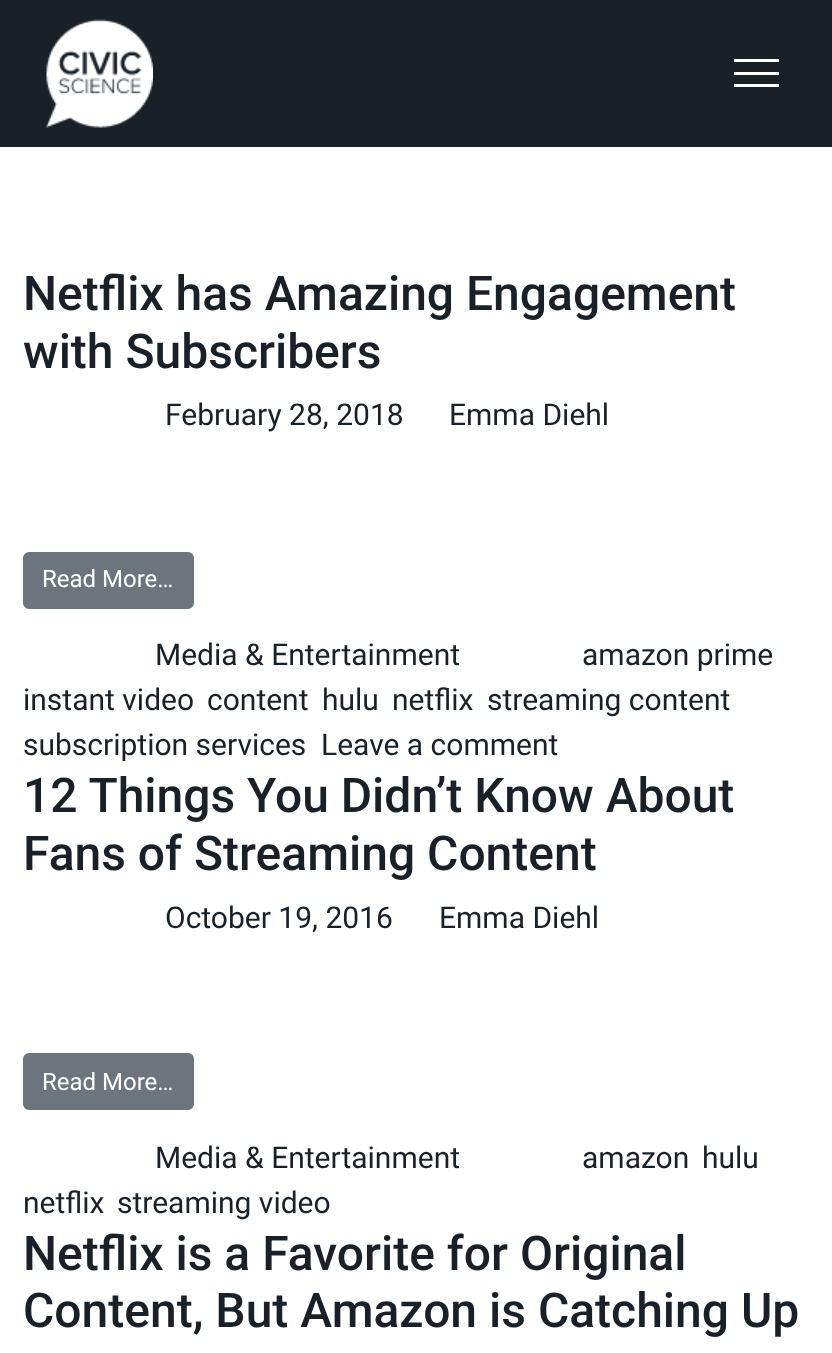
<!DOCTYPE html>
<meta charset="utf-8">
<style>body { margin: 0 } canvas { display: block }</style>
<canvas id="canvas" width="832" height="1353"></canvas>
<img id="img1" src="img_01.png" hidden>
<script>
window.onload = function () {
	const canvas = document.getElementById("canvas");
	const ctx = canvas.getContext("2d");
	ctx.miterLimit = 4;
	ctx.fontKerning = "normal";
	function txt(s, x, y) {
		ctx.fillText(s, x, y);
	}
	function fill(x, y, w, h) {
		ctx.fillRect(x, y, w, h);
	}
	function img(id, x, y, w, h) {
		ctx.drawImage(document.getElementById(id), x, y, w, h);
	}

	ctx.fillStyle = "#FFFFFF";
	fill(0, 0, 832, 1353);
	ctx.fillStyle = "#192028";
	fill(0, 0, 832, 147);
	img("img1", 46, 19, 107, 109);
	ctx.fillStyle = "#FFFFFF";
	fill(734, 59, 45, 3);
	fill(734, 72, 45, 3);
	fill(734, 84, 45, 3);
	ctx.fillStyle = "#6C757D";
	ctx.beginPath();
	ctx.roundRect(24, 553, 169, 55, 5);
	ctx.fill();
	ctx.strokeStyle = "#6C757D";
	ctx.lineWidth = 2;
	ctx.stroke();
	ctx.beginPath();
	ctx.roundRect(24, 1054, 169, 55, 5);
	ctx.fill();
	ctx.stroke();
	ctx.font = "500 48px Roboto";
	ctx.fillStyle = "#192028";
	txt("Netflix has Amazing Engagement", 23, 310);
	txt("with Subscribers", 23, 368);
	ctx.font = "30px Roboto";
	txt("February 28, 2018", 165, 425);
	txt("Emma Diehl", 449, 425);
	ctx.font = "24px Roboto";
	ctx.fillStyle = "#FFFFFF";
	txt("Read More…", 42, 587);
	ctx.font = "30px Roboto";
	ctx.fillStyle = "#192028";
	txt("Media & Entertainment", 155, 665);
	txt("amazon prime", 582, 665);
	txt("instant video", 23, 710);
	txt("content", 207, 710);
	txt("hulu", 322, 710);
	txt("netflix", 392, 710);
	txt("streaming content", 487, 710);
	txt("subscription services", 23, 755);
	txt("Leave a comment", 321, 755);
	ctx.font = "500 48px Roboto";
	txt("12 Things You Didn’t Know About", 23, 812);
	txt("Fans of Streaming Content", 23, 870);
	ctx.font = "30px Roboto";
	txt("October 19, 2016", 165, 928);
	txt("Emma Diehl", 439, 928);
	ctx.font = "24px Roboto";
	ctx.fillStyle = "#FFFFFF";
	txt("Read More…", 42, 1090);
	ctx.font = "30px Roboto";
	ctx.fillStyle = "#192028";
	txt("Media & Entertainment", 155, 1168);
	txt("amazon", 582, 1168);
	txt("hulu", 702, 1168);
	txt("netflix", 23, 1213);
	txt("streaming video", 117, 1213);
	ctx.font = "500 48px Roboto";
	txt("Netflix is a Favorite for Original", 23, 1270);
	txt("Content, But Amazon is Catching Up", 23, 1327);
};
</script>
